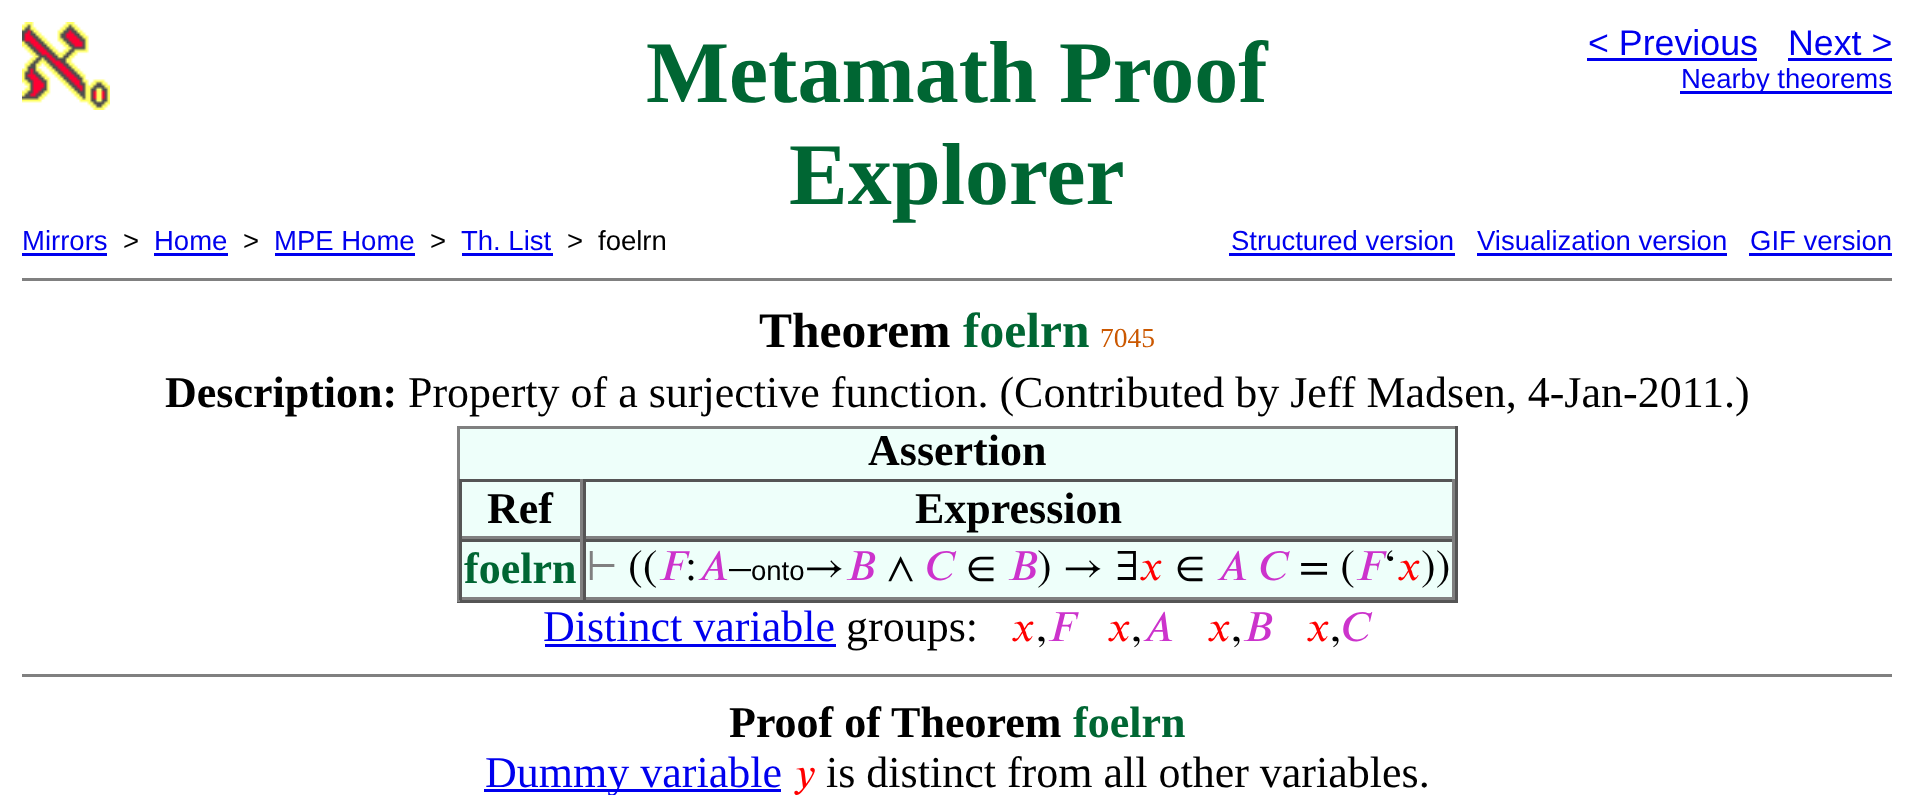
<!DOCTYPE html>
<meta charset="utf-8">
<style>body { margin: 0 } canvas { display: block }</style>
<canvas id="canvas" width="1913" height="795"></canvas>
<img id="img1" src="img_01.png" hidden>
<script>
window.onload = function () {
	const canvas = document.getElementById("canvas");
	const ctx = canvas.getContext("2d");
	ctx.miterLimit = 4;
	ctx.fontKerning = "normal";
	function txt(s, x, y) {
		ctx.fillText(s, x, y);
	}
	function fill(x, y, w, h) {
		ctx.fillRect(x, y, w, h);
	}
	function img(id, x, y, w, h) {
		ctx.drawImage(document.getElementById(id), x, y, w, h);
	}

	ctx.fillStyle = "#FFFFFF";
	fill(0, 0, 1913, 795);
	img("img1", 22, 22, 88, 88);
	ctx.fillStyle = "#0000EE";
	fill(1587, 58, 170, 3);
	fill(1788, 58, 104, 3);
	fill(1680, 91, 212, 3);
	fill(22, 253, 85, 3);
	fill(154, 253, 74, 3);
	fill(275, 253, 140, 3);
	fill(462, 253, 91, 3);
	fill(1229, 253, 226, 3);
	fill(1477, 253, 250, 3);
	fill(1749, 253, 143, 3);
	ctx.fillStyle = "#808080";
	fill(22, 278, 1870, 3);
	ctx.fillStyle = "#EEFFFA";
	fill(460, 429, 995, 168);
	ctx.fillStyle = "#808080";
	fill(457, 426, 1001, 3);
	ctx.fillStyle = "#555555";
	fill(1455, 426, 3, 176);
	fill(457, 600, 1001, 3);
	ctx.fillStyle = "#808080";
	fill(457, 426, 3, 176);
	ctx.fillStyle = "#555555";
	fill(459, 479, 996, 3);
	ctx.fillStyle = "#808080";
	fill(580, 479, 3, 60);
	fill(459, 536, 124, 3);
	ctx.fillStyle = "#555555";
	fill(459, 479, 3, 60);
	ctx.fillStyle = "#808080";
	fill(1452, 479, 3, 60);
	fill(583, 536, 872, 3);
	ctx.fillStyle = "#555555";
	fill(583, 479, 3, 60);
	fill(459, 539, 996, 3);
	ctx.fillStyle = "#808080";
	fill(580, 539, 3, 61);
	fill(459, 597, 124, 3);
	ctx.fillStyle = "#555555";
	fill(459, 539, 3, 61);
	ctx.fillStyle = "#808080";
	fill(1452, 539, 3, 61);
	fill(583, 597, 872, 3);
	ctx.fillStyle = "#555555";
	fill(583, 539, 3, 61);
	ctx.fillStyle = "#0000EE";
	fill(545, 644, 291, 3);
	ctx.fillStyle = "#808080";
	fill(22, 674, 1870, 3);
	ctx.fillStyle = "#0000EE";
	fill(484, 789, 297, 3);
	ctx.font = "bold 88px Liberation Serif";
	ctx.fillStyle = "#006633";
	txt("Metamath Proof", 646, 102);
	txt("Explorer", 789, 204);
	ctx.font = "35.75px Liberation Sans";
	ctx.fillStyle = "#0000EE";
	txt("< Previous", 1588, 55);
	txt("Next >", 1788, 55);
	ctx.font = "27.5px Liberation Sans";
	txt("Nearby theorems", 1681, 88);
	txt("Mirrors", 22, 250);
	ctx.fillStyle = "#000000";
	txt(">", 123, 250);
	ctx.fillStyle = "#0000EE";
	txt("Home", 154, 250);
	ctx.fillStyle = "#000000";
	txt(">", 243, 250);
	ctx.fillStyle = "#0000EE";
	txt("MPE Home", 274, 250);
	ctx.fillStyle = "#000000";
	txt(">", 430, 250);
	ctx.fillStyle = "#0000EE";
	txt("Th. List", 461, 250);
	ctx.fillStyle = "#000000";
	txt(">", 567, 250);
	txt("foelrn", 598, 250);
	ctx.fillStyle = "#0000EE";
	txt("Structured version", 1231, 250);
	txt("Visualization version", 1477, 250);
	txt("GIF version", 1750, 250);
	ctx.font = "bold 49.5px Liberation Serif";
	ctx.fillStyle = "#000000";
	txt("Theorem", 759, 347);
	ctx.fillStyle = "#006633";
	txt("foelrn", 963, 347);
	ctx.font = "27.5px Liberation Serif";
	ctx.fillStyle = "#CB5800";
	txt("7045", 1100, 347);
	ctx.font = "bold 44px Liberation Serif";
	ctx.fillStyle = "#000000";
	txt("Description:", 165, 407);
	ctx.font = "44px Liberation Serif";
	txt("Property of a surjective function. (Contributed by Jeff Madsen, 4-Jan-2011.)", 408, 407);
	ctx.font = "bold 44px Liberation Serif";
	txt("Assertion", 868, 465);
	txt("Ref", 487, 523);
	txt("Expression", 915, 523);
	ctx.fillStyle = "#006633";
	txt("foelrn", 464, 583);
	ctx.font = "44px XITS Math";
	ctx.fillStyle = "#808080";
	txt("⊢", 587, 580);
	ctx.fillStyle = "#000000";
	txt("((", 628, 580);
	ctx.fillStyle = "#CC33CC";
	txt("𝐹", 658, 580);
	ctx.fillStyle = "#000000";
	txt(":", 685, 580);
	ctx.fillStyle = "#CC33CC";
	txt("𝐴", 697, 580);
	ctx.fillStyle = "#000000";
	txt("–", 729, 580);
	ctx.font = "27.5px Liberation Sans";
	txt("onto", 751, 580);
	ctx.font = "44px XITS Math";
	txt("→", 804, 580);
	ctx.fillStyle = "#CC33CC";
	txt("𝐵", 845, 580);
	ctx.fillStyle = "#000000";
	txt("∧", 887, 580);
	ctx.fillStyle = "#CC33CC";
	txt("𝐶", 925, 580);
	ctx.fillStyle = "#000000";
	txt("∈", 966, 580);
	ctx.fillStyle = "#CC33CC";
	txt("𝐵", 1007, 580);
	ctx.fillStyle = "#000000";
	txt(") → ∃", 1037, 580);
	ctx.fillStyle = "#FF0000";
	txt("𝑥", 1139, 580);
	ctx.fillStyle = "#000000";
	txt("∈", 1175, 580);
	ctx.fillStyle = "#CC33CC";
	txt("𝐴 𝐶", 1216, 580);
	ctx.fillStyle = "#000000";
	txt("= (", 1299, 580);
	ctx.fillStyle = "#CC33CC";
	txt("𝐹", 1355, 580);
	ctx.fillStyle = "#000000";
	txt("‘", 1382, 580);
	ctx.fillStyle = "#FF0000";
	txt("𝑥", 1397, 580);
	ctx.fillStyle = "#000000";
	txt("))", 1421, 580);
	ctx.font = "44px Liberation Serif";
	ctx.fillStyle = "#0000EE";
	txt("Distinct variable", 543, 641);
	ctx.fillStyle = "#000000";
	txt("groups:", 846, 641);
	ctx.font = "44px XITS Math";
	ctx.fillStyle = "#FF0000";
	txt("𝑥", 1011, 641);
	ctx.fillStyle = "#000000";
	txt(",", 1036, 641);
	ctx.fillStyle = "#CC33CC";
	txt("𝐹", 1047, 641);
	ctx.fillStyle = "#FF0000";
	txt("𝑥", 1107, 641);
	ctx.fillStyle = "#000000";
	txt(",", 1131, 641);
	ctx.fillStyle = "#CC33CC";
	txt("𝐴", 1142, 641);
	ctx.fillStyle = "#FF0000";
	txt("𝑥", 1207, 641);
	ctx.fillStyle = "#000000";
	txt(",", 1231, 641);
	ctx.fillStyle = "#CC33CC";
	txt("𝐵", 1242, 641);
	ctx.fillStyle = "#FF0000";
	txt("𝑥", 1306, 641);
	ctx.fillStyle = "#000000";
	txt(",", 1330, 641);
	ctx.fillStyle = "#CC33CC";
	txt("𝐶", 1341, 641);
	ctx.font = "bold 44px Liberation Serif";
	ctx.fillStyle = "#000000";
	txt("Proof of Theorem", 729, 737);
	ctx.fillStyle = "#006633";
	txt("foelrn", 1073, 737);
	ctx.font = "44px Liberation Serif";
	ctx.fillStyle = "#0000EE";
	txt("Dummy variable", 485, 787);
	ctx.font = "44px XITS Math";
	ctx.fillStyle = "#FF0000";
	txt("𝑦", 793, 787);
	ctx.font = "44px Liberation Serif";
	ctx.fillStyle = "#000000";
	txt("is distinct from all other variables.", 826, 787);
};
</script>
